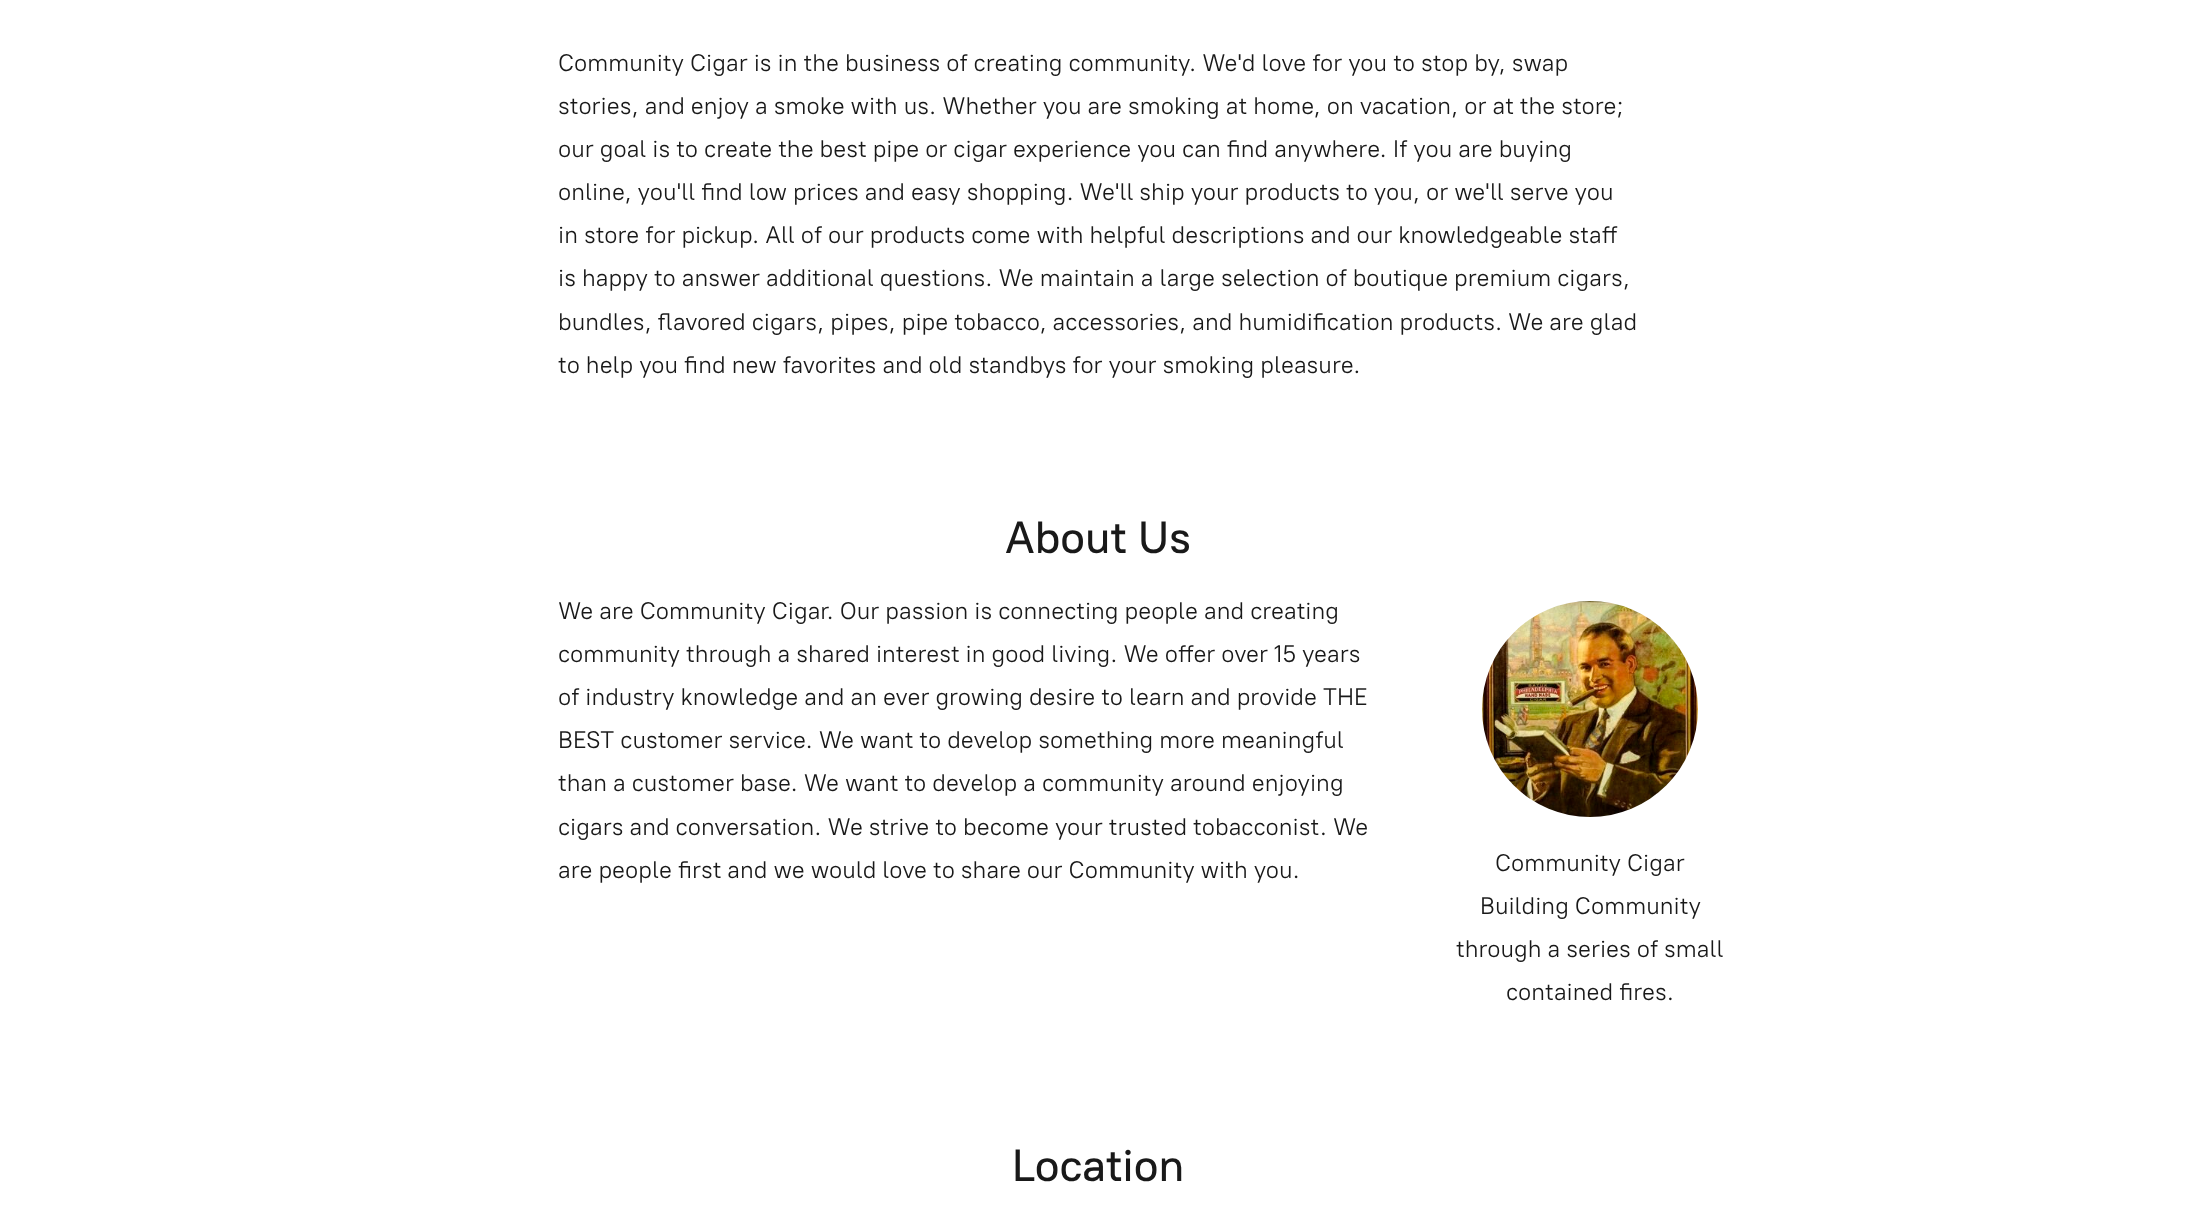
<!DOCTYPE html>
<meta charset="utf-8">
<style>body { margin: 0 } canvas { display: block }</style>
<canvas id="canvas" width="2196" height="1207"></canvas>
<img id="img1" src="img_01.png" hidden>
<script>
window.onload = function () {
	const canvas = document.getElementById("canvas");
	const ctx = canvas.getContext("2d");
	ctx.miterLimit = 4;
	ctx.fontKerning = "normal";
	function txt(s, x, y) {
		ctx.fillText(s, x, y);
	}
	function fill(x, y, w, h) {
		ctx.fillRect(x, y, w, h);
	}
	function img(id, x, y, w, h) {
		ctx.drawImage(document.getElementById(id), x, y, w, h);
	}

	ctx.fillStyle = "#FFFFFF";
	fill(0, 0, 2196, 1207);
	img("img1", 1482, 601, 216, 216);
	ctx.font = "24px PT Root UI";
	ctx.fillStyle = "#191919";
	txt("Community Cigar is in the business of creating community. We'd love for you to stop by, swap", 558, 71);
	txt("stories, and enjoy a smoke with us. Whether you are smoking at home, on vacation, or at the store;", 558, 114);
	txt("our goal is to create the best pipe or cigar experience you can find anywhere. If you are buying", 558, 157);
	txt("online, you'll find low prices and easy shopping. We'll ship your products to you, or we'll serve you", 558, 200);
	txt("in store for pickup. All of our products come with helpful descriptions and our knowledgeable staff", 558, 243);
	txt("is happy to answer additional questions. We maintain a large selection of boutique premium cigars,", 558, 286);
	txt("bundles, flavored cigars, pipes, pipe tobacco, accessories, and humidification products. We are glad", 558, 330);
	txt("to help you find new favorites and old standbys for your smoking pleasure.", 558, 373);
	ctx.font = "500 45px PT Root UI";
	txt("About Us", 1005, 553);
	ctx.font = "24px PT Root UI";
	txt("We are Community Cigar. Our passion is connecting people and creating", 558, 619);
	txt("community through a shared interest in good living. We offer over 15 years", 558, 662);
	txt("of industry knowledge and an ever growing desire to learn and provide THE", 558, 705);
	txt("BEST customer service. We want to develop something more meaningful", 558, 748);
	txt("than a customer base. We want to develop a community around enjoying", 558, 791);
	txt("cigars and conversation. We strive to become your trusted tobacconist. We", 558, 835);
	txt("are people first and we would love to share our Community with you.", 558, 878);
	txt("Community Cigar", 1495, 871);
	txt("Building Community", 1480, 914);
	txt("through a series of small", 1456, 957);
	txt("contained fires.", 1506, 1000);
	ctx.font = "500 45px PT Root UI";
	txt("Location", 1012, 1181);
};
</script>
